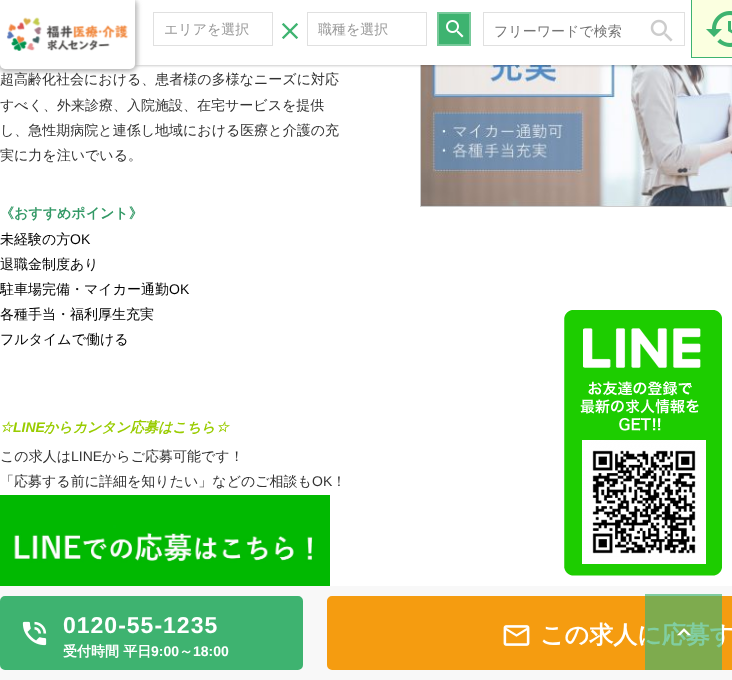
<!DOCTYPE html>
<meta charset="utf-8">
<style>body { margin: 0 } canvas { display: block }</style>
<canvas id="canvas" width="732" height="680"></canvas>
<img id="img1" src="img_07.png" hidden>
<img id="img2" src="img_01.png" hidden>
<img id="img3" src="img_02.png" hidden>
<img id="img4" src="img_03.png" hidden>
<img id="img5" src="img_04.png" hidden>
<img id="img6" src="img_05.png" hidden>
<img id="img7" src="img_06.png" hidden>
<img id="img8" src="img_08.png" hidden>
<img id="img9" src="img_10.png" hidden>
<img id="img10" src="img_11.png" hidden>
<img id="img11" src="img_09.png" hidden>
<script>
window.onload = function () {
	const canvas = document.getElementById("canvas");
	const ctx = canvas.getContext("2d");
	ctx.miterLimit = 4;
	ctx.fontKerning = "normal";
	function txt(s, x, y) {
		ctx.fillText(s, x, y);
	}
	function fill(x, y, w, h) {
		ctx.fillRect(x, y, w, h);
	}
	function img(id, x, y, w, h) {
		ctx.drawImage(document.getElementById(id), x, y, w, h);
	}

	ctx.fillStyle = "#FFFFFF";
	fill(0, 0, 732, 680);
	img("img1", 421, 65, 311, 141);
	ctx.strokeStyle = "#CCCCCC";
	ctx.strokeRect(420.5, -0.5, 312, 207);
	ctx.fillStyle = "rgba(0, 0, 0, 0.2)";
	ctx.filter = "blur(1px)";
	ctx.beginPath();
	ctx.rect(1, 1, 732, 65);
	ctx.fill();
	ctx.filter = "none";
	ctx.fillStyle = "#FFFFFF";
	fill(0, 0, 732, 65);
	ctx.fillStyle = "rgba(187, 187, 187, 0.8)";
	ctx.filter = "blur(2px)";
	ctx.beginPath();
	ctx.roundRect(-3, 0, 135, 69, 5);
	ctx.fill();
	ctx.filter = "none";
	ctx.filter = "blur(2px)";
	ctx.beginPath();
	ctx.roundRect(3, 0, 135, 69, 5);
	ctx.fill();
	ctx.filter = "none";
	ctx.filter = "blur(2px)";
	ctx.beginPath();
	ctx.roundRect(0, 3, 135, 69, 5);
	ctx.fill();
	ctx.filter = "none";
	ctx.fillStyle = "#FFFFFF";
	ctx.beginPath();
	ctx.roundRect(0, 0, 135, 69, [0, 0, 5, 5]);
	ctx.fill();
	img("img2", 6, 17, 123, 34);
	ctx.strokeStyle = "#E0E0E0";
	ctx.strokeRect(153.5, 12.5, 119, 33);
	img("img3", 281, 23, 18, 16);
	ctx.strokeRect(307.5, 12.5, 119, 33);
	ctx.fillStyle = "#3EB370";
	fill(439, 14, 30, 30);
	img("img4", 446, 20, 18, 18);
	ctx.strokeStyle = "#78CA9B";
	ctx.lineWidth = 2;
	ctx.strokeRect(438, 13, 32, 32);
	ctx.strokeStyle = "#E0E0E0";
	ctx.lineWidth = 1;
	ctx.strokeRect(483.5, 12.5, 201, 33);
	img("img5", 650, 19, 23, 23);
	ctx.fillStyle = "#FBFFE0";
	fill(692, 0, 40, 57);
	ctx.fillStyle = "#3EB370";
	fill(691, 57, 41, 1);
	fill(691, 0, 1, 58);
	img("img6", 706, 11, 26, 36);
	img("img7", 0, 495, 330, 91);
	img("img8", 564, 310, 158, 266);
	ctx.fillStyle = "#F8F8F8";
	fill(0, 586, 732, 94);
	ctx.fillStyle = "#3EB370";
	ctx.beginPath();
	ctx.roundRect(1.5, 597.5, 300, 71, 3.5);
	ctx.fill();
	ctx.strokeStyle = "#3EB370";
	ctx.lineWidth = 3;
	ctx.stroke();
	img("img9", 22, 621, 25, 25);
	ctx.fillStyle = "#F59C10";
	ctx.beginPath();
	ctx.roundRect(328.5, 597.5, 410, 71, 3.5);
	ctx.fill();
	ctx.strokeStyle = "#F59C10";
	ctx.stroke();
	img("img10", 503, 625, 27, 21);
	ctx.font = "500 14px WenQuanYi Zen Hei";
	ctx.fillStyle = "#999999";
	txt("エリアを選択", 164, 34);
	txt("職種を選択", 318, 34);
	ctx.fillStyle = "#757575";
	txt("フリーワードで検索", 494, 36);
	ctx.fillStyle = "#333333";
	txt("超高齢化社会における、患者様の多様なニーズに対応", 0, 84);
	txt("すべく、外来診療、入院施設、在宅サービスを提供", 0, 110);
	txt("し、急性期病院と連係し地域における医療と介護の充", 0, 135);
	txt("実に力を注いでいる。", 0, 160);
	ctx.font = "bold 14px WenQuanYi Zen Hei";
	ctx.fillStyle = "#339966";
	txt("《おすすめポイント》", 0, 218);
	ctx.font = "500 14px WenQuanYi Zen Hei";
	ctx.fillStyle = "#000000";
	txt("未経験の方", 0, 244);
	ctx.font = "14px Liberation Sans";
	txt("OK", 70, 244);
	ctx.font = "500 14px WenQuanYi Zen Hei";
	txt("退職金制度あり", 0, 269);
	txt("駐車場完備・マイカー通勤", 0, 294);
	ctx.font = "14px Liberation Sans";
	txt("OK", 169, 294);
	ctx.font = "500 14px WenQuanYi Zen Hei";
	txt("各種手当・福利厚生充実", 0, 319);
	txt("フルタイムで働ける", 0, 344);
	ctx.font = "italic bold 14px DejaVu Sans";
	ctx.fillStyle = "#99CC00";
	txt("☆", 0, 432);
	ctx.font = "italic bold 14px Liberation Sans";
	txt("LINE", 13, 432);
	ctx.font = "italic bold 14px WenQuanYi Zen Hei";
	txt("からカンタン応募はこちら", 44, 432);
	ctx.font = "italic bold 14px DejaVu Sans";
	txt("☆", 216, 432);
	ctx.font = "500 14px WenQuanYi Zen Hei";
	ctx.fillStyle = "#333333";
	txt("この求人は", 0, 461);
	ctx.font = "14px Liberation Sans";
	txt("LINE", 71, 461);
	ctx.font = "500 14px WenQuanYi Zen Hei";
	txt("からご応募可能です！", 102, 461);
	txt("「応募する前に詳細を知りたい」などのご相談も", 0, 486);
	ctx.font = "14px Liberation Sans";
	txt("OK", 312, 486);
	ctx.font = "500 14px WenQuanYi Zen Hei";
	txt("！", 332, 486);
	ctx.letterSpacing = "1px";
	ctx.font = "bold 23px Liberation Sans";
	ctx.fillStyle = "#FFFFFF";
	txt("0120-55-1235", 63, 633);
	ctx.letterSpacing = "0px";
	ctx.font = "bold 14px WenQuanYi Zen Hei";
	txt("受付時間 平日", 63, 656);
	ctx.font = "bold 14px Liberation Sans";
	txt("9:00", 151, 656);
	ctx.font = "bold 14px WenQuanYi Zen Hei";
	txt("～", 179, 656);
	ctx.font = "bold 14px Liberation Sans";
	txt("18:00", 193, 656);
	ctx.font = "bold 24px WenQuanYi Zen Hei";
	txt("この求人に応募す", 540, 643);
	ctx.fillStyle = "rgba(62, 179, 112, 0.65)";
	fill(645, 594, 77, 76);
	img("img11", 677, 628, 14, 8);
};
</script>
